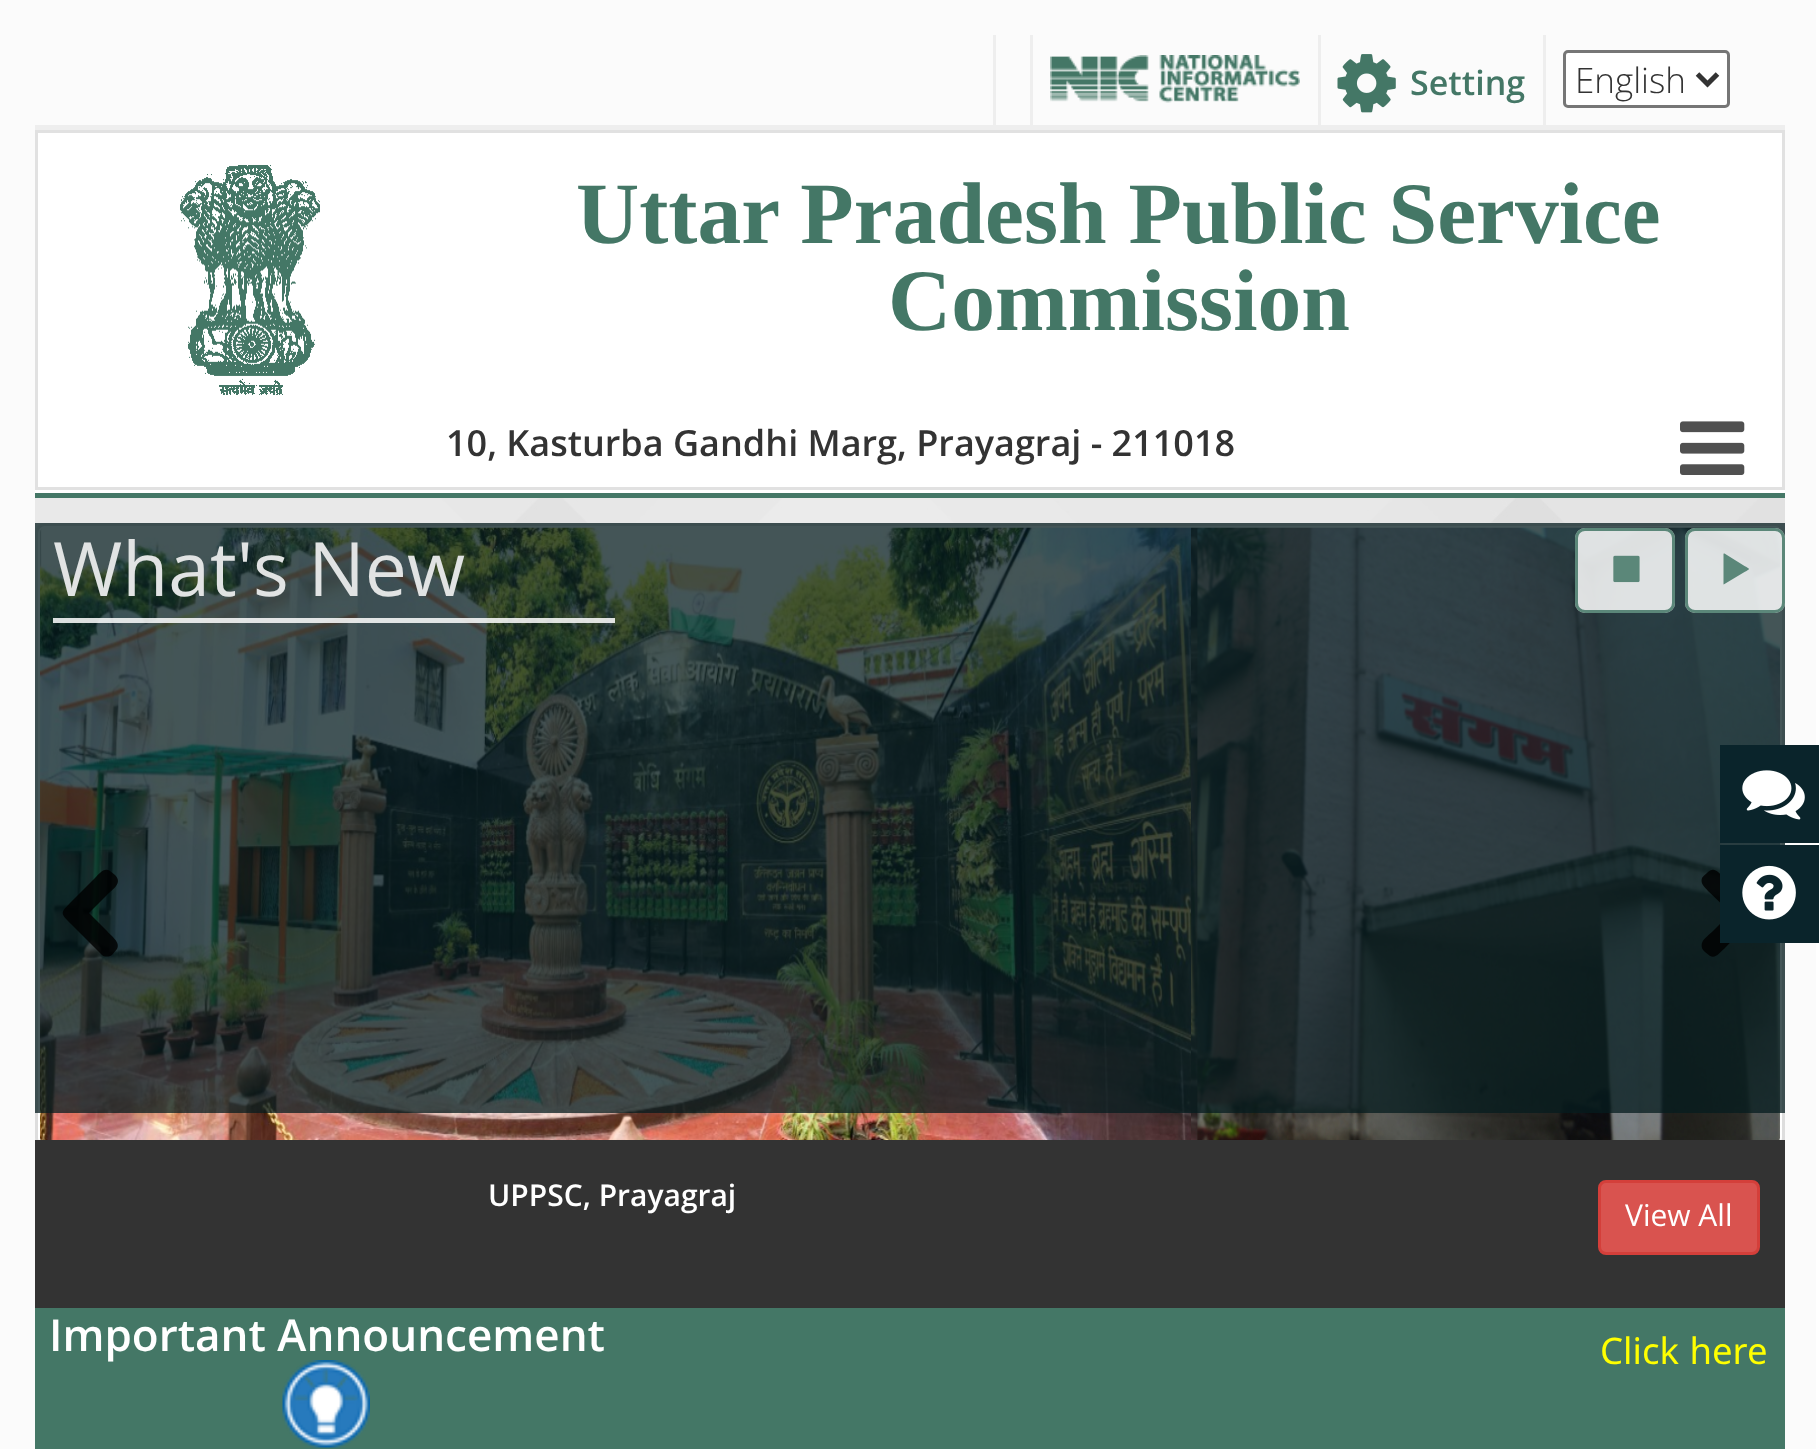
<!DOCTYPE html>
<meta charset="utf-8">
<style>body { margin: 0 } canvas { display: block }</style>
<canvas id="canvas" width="1819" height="1449"></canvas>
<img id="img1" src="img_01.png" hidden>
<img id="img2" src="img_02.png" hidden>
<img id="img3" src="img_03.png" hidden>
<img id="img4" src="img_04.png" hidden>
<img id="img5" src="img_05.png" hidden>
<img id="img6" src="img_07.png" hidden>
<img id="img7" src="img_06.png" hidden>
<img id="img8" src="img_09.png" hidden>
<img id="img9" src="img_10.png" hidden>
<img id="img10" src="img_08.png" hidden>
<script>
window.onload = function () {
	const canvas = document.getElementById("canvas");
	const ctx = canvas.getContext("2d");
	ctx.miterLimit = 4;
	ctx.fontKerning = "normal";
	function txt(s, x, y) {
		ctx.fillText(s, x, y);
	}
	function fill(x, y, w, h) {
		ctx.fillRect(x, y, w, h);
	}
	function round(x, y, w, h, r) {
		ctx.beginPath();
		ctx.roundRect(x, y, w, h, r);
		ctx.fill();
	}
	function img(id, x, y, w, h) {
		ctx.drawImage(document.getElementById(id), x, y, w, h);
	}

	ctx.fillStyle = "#FFFFFF";
	fill(0, 0, 1819, 1449);
	ctx.fillStyle = "#FBFBFB";
	fill(0, 0, 1816, 1449);
	ctx.fillStyle = "#EEEEEE";
	fill(35, 125, 1750, 5);
	fill(993, 35, 3, 90);
	fill(1030, 35, 3, 90);
	img("img1", 1050, 55, 250, 48);
	fill(1318, 35, 3, 90);
	img("img2", 1337, 54, 59, 59);
	fill(1543, 35, 3, 90);
	ctx.fillStyle = "#FFFFFF";
	ctx.beginPath();
	ctx.roundRect(1564.5, 51.5, 164, 55, 3.5);
	ctx.fill();
	ctx.strokeStyle = "#767676";
	ctx.lineWidth = 3;
	ctx.stroke();
	ctx.beginPath();
	ctx.moveTo(1697.5, 74);
	ctx.lineTo(1707.5, 84);
	ctx.lineTo(1717.5, 74);
	ctx.strokeStyle = "#333333";
	ctx.lineWidth = 5;
	ctx.stroke();
	fill(35, 133, 1750, 360);
	ctx.strokeStyle = "#E1E1E1";
	ctx.lineWidth = 3;
	ctx.strokeRect(36.5, 131.5, 1747, 357);
	img("img3", 180, 165, 140, 230);
	img("img4", 1680, 421, 65, 54);
	ctx.fillStyle = "#447766";
	fill(35, 493, 1750, 5);
	img("img5", 35, 498, 1750, 642);
	ctx.fillStyle = "#FFFFFF";
	ctx.beginPath();
	ctx.roundRect(36.5, 524.5, 1747, 622, 8.5);
	ctx.fill();
	ctx.strokeStyle = "#DDDDDD";
	ctx.stroke();
	img("img6", 40, 527, 1740, 613);
	ctx.fillStyle = "rgba(5, 28, 31, 0.75)";
	fill(35, 523, 1750, 590);
	ctx.fillStyle = "rgba(255, 255, 255, 0.85)";
	fill(53, 618, 562, 5);
	round(1575, 528, 100, 85, 10);
	ctx.beginPath();
	ctx.roundRect(1576.5, 529.5, 97, 82, 8.5);
	ctx.strokeStyle = "rgba(68, 119, 102, 0.85)";
	ctx.stroke();
	img("img7", 1613, 555, 27, 28);
	round(1685, 528, 100, 85, 10);
	ctx.beginPath();
	ctx.roundRect(1686.5, 529.5, 97, 82, 8.5);
	ctx.stroke();
	ctx.fillStyle = "#5B8779";
	ctx.beginPath();
	ctx.moveTo(1724.5, 553.5);
	ctx.lineTo(1744.5, 566);
	ctx.bezierCurveTo(1750.5, 569.5, 1750.5, 568.5, 1744.5, 572);
	ctx.lineTo(1724.5, 584);
	ctx.lineTo(1723.5, 584.5);
	ctx.lineTo(1723.5, 554);
	ctx.bezierCurveTo(1723.5, 553.5, 1724, 553.5, 1724.5, 553.5);
	ctx.closePath();
	ctx.fill();
	ctx.fillStyle = "rgba(0, 0, 0, 0.8)";
	ctx.beginPath();
	ctx.moveTo(102, 955);
	ctx.lineTo(71, 924);
	ctx.bezierCurveTo(60, 913, 60, 913, 71, 902);
	ctx.lineTo(95, 878);
	ctx.bezierCurveTo(99, 874, 104, 867, 110, 871);
	ctx.lineTo(115, 875);
	ctx.bezierCurveTo(123, 883, 113, 889, 107, 895);
	ctx.lineTo(89, 913);
	ctx.lineTo(107, 931);
	ctx.bezierCurveTo(110, 935, 121, 942, 117, 949);
	ctx.lineTo(112, 955);
	ctx.bezierCurveTo(109, 957, 104, 957, 102, 955);
	ctx.closePath();
	ctx.fill();
	ctx.beginPath();
	ctx.moveTo(1756, 913);
	ctx.bezierCurveTo(1756, 918, 1751, 921, 1748, 924);
	ctx.lineTo(1724, 949);
	ctx.bezierCurveTo(1720, 952, 1716, 959, 1710, 956);
	ctx.lineTo(1705, 952);
	ctx.bezierCurveTo(1702, 949, 1701, 947, 1702, 943);
	ctx.bezierCurveTo(1703, 939, 1710, 934, 1713, 931);
	ctx.lineTo(1731, 913);
	ctx.lineTo(1708, 891);
	ctx.bezierCurveTo(1705, 887, 1700, 884, 1702, 878);
	ctx.bezierCurveTo(1703, 876, 1705, 875, 1707, 873);
	ctx.bezierCurveTo(1714, 866, 1718, 872, 1724, 878);
	ctx.lineTo(1748, 902);
	ctx.bezierCurveTo(1751, 905, 1756, 908, 1756, 913);
	ctx.closePath();
	ctx.fill();
	ctx.fillStyle = "#333333";
	fill(35, 1140, 1750, 168);
	ctx.fillStyle = "#D9534F";
	ctx.beginPath();
	ctx.roundRect(1599.5, 1181.5, 159, 72, 6.5);
	ctx.fill();
	ctx.strokeStyle = "#D43F3A";
	ctx.stroke();
	ctx.fillStyle = "#447766";
	fill(35, 1308, 1750, 141);
	ctx.fillStyle = "#0A242B";
	fill(1720, 745, 99, 98);
	img("img8", 1742, 770, 63, 50);
	fill(1720, 845, 99, 98);
	img("img9", 1742, 865, 54, 55);
	ctx.font = "600 34px Open Sans";
	ctx.fillStyle = "#447766";
	txt("Setting", 1410, 95);
	ctx.font = "300 35px Open Sans";
	ctx.fillStyle = "#333333";
	txt("English", 1575, 93);
	ctx.font = "bold 87.5px Liberation Serif";
	ctx.fillStyle = "#447766";
	txt("Uttar Pradesh Public Service", 576, 243);
	txt("Commission", 888, 330);
	ctx.font = "600 36px Open Sans";
	ctx.fillStyle = "#333333";
	txt("10, Kasturba Gandhi Marg, Prayagraj - 211018", 446, 456);
	ctx.font = "75px Open Sans";
	ctx.fillStyle = "#E1E3E3";
	txt("What's New", 53, 596);
	ctx.font = "600 30px Open Sans";
	ctx.fillStyle = "#FFFFFF";
	txt("UPPSC, Prayagraj", 488, 1206);
	ctx.font = "30px Open Sans";
	txt("View All", 1625, 1226);
	ctx.font = "600 44px Open Sans";
	txt("Important Announcement", 49, 1351);
	img("img10", 282, 1360, 88, 88);
	ctx.wordSpacing = "1px";
	ctx.font = "36.5px Noto Sans";
	ctx.fillStyle = "#FFFF00";
	txt("Click here", 1600, 1364);
};
</script>
